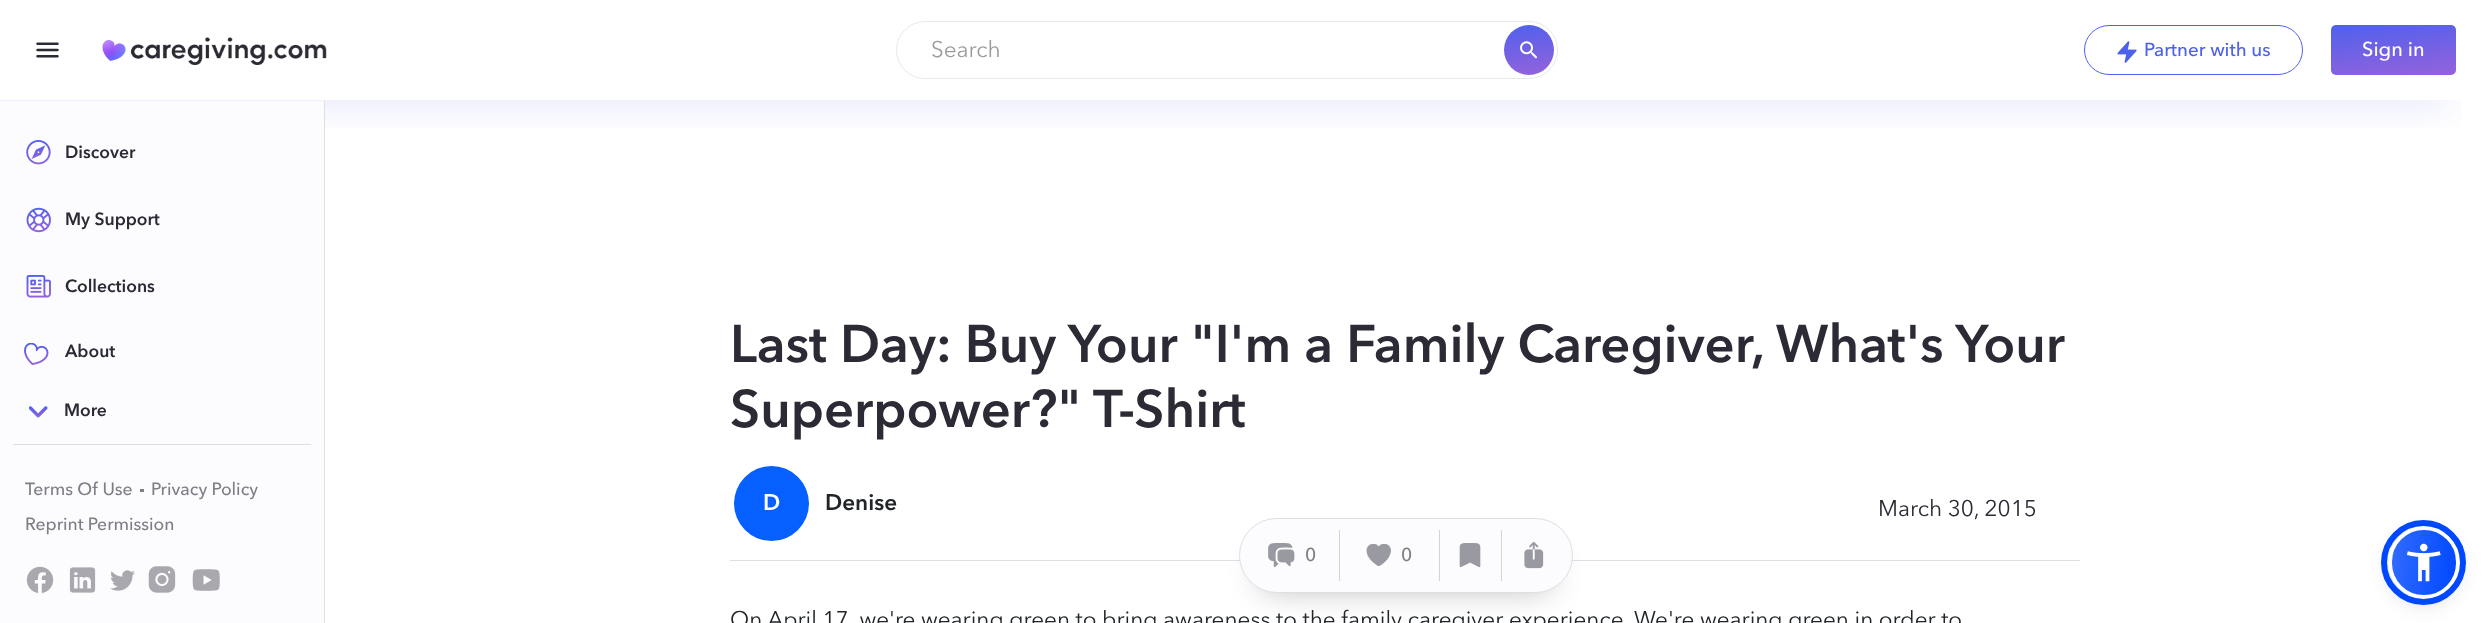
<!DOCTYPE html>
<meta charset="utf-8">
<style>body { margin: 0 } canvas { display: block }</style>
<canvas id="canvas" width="2485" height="623"></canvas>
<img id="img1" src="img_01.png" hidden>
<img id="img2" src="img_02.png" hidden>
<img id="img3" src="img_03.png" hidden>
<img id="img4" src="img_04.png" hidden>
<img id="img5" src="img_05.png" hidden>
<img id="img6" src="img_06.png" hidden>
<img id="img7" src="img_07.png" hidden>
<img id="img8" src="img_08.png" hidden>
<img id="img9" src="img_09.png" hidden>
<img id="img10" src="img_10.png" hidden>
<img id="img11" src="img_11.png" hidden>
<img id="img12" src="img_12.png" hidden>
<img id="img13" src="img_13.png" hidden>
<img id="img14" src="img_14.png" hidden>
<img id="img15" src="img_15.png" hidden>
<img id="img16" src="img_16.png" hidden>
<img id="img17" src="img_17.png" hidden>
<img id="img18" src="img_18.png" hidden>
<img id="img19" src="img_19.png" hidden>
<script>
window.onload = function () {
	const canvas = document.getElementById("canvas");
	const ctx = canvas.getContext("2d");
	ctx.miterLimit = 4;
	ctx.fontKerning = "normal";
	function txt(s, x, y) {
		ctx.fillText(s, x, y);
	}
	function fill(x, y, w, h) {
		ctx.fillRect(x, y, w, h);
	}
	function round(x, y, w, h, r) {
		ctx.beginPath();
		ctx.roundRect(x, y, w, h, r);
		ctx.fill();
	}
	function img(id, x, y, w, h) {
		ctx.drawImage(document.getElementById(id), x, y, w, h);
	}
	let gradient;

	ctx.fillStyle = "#FFFFFF";
	fill(0, 0, 2485, 623);
	ctx.save();
	ctx.beginPath();
	ctx.rect(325, 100, 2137, 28);
	ctx.clip();
	ctx.fillStyle = "rgba(78, 97, 237, 0.2)";
	ctx.filter = "blur(20px)";
	ctx.beginPath();
	ctx.rect(38, 78, 2410, 25);
	ctx.fill();
	ctx.filter = "none";
	ctx.restore();
	img("img1", 36, 42, 23, 16);
	img("img2", 102, 37, 225, 28);
	ctx.beginPath();
	ctx.roundRect(896.5, 21.5, 661, 57, 28.5);
	ctx.strokeStyle = "#E8E9EB";
	ctx.stroke();
	gradient = ctx.createLinearGradient(1525, 22, 1532, 78);
	gradient.addColorStop(0, "#4E61ED");
	gradient.addColorStop(1, "#9662DB");
	ctx.fillStyle = gradient;
	ctx.beginPath();
	ctx.arc(1529, 50, 25, 0, Math.PI * 2);
	ctx.fill();
	img("img3", 1520, 41, 17, 18);
	ctx.beginPath();
	ctx.roundRect(2084.5, 25.5, 218, 49, 24.5);
	ctx.strokeStyle = "#4E61ED";
	ctx.stroke();
	img("img4", 2117, 41, 20, 22);
	gradient = ctx.createLinearGradient(2390, 17, 2398, 83);
	gradient.addColorStop(0, "#4E61ED");
	gradient.addColorStop(1, "#9662DB");
	ctx.fillStyle = gradient;
	round(2331, 25, 125, 50, 5);
	ctx.fillStyle = "#FCFCFF";
	fill(0, 100, 325, 523);
	ctx.fillStyle = "#EEF0FE";
	ctx.beginPath();
	ctx.moveTo(0, 100);
	ctx.lineTo(325, 100);
	ctx.lineTo(324, 101);
	ctx.lineTo(0, 101);
	ctx.closePath();
	ctx.fill();
	ctx.fillStyle = "#DDDFE5";
	ctx.beginPath();
	ctx.moveTo(325, 100);
	ctx.lineTo(325, 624);
	ctx.lineTo(324, 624);
	ctx.lineTo(324, 101);
	ctx.closePath();
	ctx.fill();
	img("img5", 26, 140, 25, 25);
	img("img6", 26, 207, 25, 26);
	img("img7", 26, 275, 25, 23);
	img("img8", 24, 343, 25, 22);
	img("img9", 29, 406, 19, 12);
	fill(13, 444, 298, 1);
	ctx.fillStyle = "#7F7E86";
	fill(140, 489, 4, 3);
	img("img10", 26, 566, 28, 27);
	img("img11", 69, 567, 27, 26);
	img("img12", 110, 570, 25, 21);
	img("img13", 148, 566, 28, 27);
	img("img14", 192, 569, 28, 22);
	ctx.fillStyle = "#0560FF";
	ctx.beginPath();
	ctx.arc(771.5, 503.5, 37.5, 0, Math.PI * 2);
	ctx.fill();
	ctx.fillStyle = "#DDDFE5";
	fill(730, 560, 1350, 1);
	ctx.fillStyle = "rgba(0, 0, 0, 0.25)";
	ctx.filter = "blur(15.5px)";
	ctx.beginPath();
	ctx.roundRect(1258, 554, 296, 37, 18.5);
	ctx.fill();
	ctx.filter = "none";
	ctx.fillStyle = "#FCFCFF";
	ctx.beginPath();
	ctx.roundRect(1239.5, 518.5, 333, 74, 37);
	ctx.fill();
	ctx.strokeStyle = "#DDDFE5";
	ctx.stroke();
	ctx.fillStyle = "#D2D2D7";
	fill(1339, 530, 1, 51);
	img("img15", 1268, 543, 27, 25);
	fill(1439, 530, 1, 51);
	img("img16", 1366, 544, 25, 22);
	fill(1501, 530, 1, 51);
	img("img17", 1459, 543, 22, 25);
	img("img18", 1524, 541, 20, 28);
	ctx.fillStyle = "rgba(93, 100, 148, 0.2)";
	ctx.filter = "blur(2.5px)";
	ctx.beginPath();
	ctx.roundRect(2388, 529, 72, 72, 36);
	ctx.fill();
	ctx.filter = "none";
	ctx.fillStyle = "rgba(37, 44, 97, 0.15)";
	ctx.filter = "blur(9.5px)";
	ctx.beginPath();
	ctx.roundRect(2388, 533, 72, 72, 36);
	ctx.fill();
	ctx.filter = "none";
	ctx.save();
	ctx.beginPath();
	ctx.roundRect(2388, 526, 72, 73, 36);
	ctx.clip();
	gradient = ctx.createLinearGradient(2388, 559, 2459, 566);
	gradient.addColorStop(0, "#326CFF");
	gradient.addColorStop(1, "#0048FF");
	ctx.fillStyle = gradient;
	fill(2391, 530, 65, 65);
	ctx.restore();
	ctx.beginPath();
	ctx.roundRect(2390, 528, 68, 69, 34);
	ctx.strokeStyle = "#FFFFFF";
	ctx.lineWidth = 4;
	ctx.stroke();
	ctx.beginPath();
	ctx.arc(2423.5, 562.5, 39.5, 0, Math.PI * 2);
	ctx.strokeStyle = "#0048FF";
	ctx.lineWidth = 6;
	ctx.stroke();
	img("img19", 2406, 543, 35, 39);
	ctx.font = "22.5px Avenir Next";
	ctx.fillStyle = "#9C9C9C";
	txt("Search", 931, 57);
	ctx.font = "500 18.75px Avenir Next";
	ctx.fillStyle = "#4E61ED";
	txt("Partner with us", 2144, 56);
	ctx.font = "500 20px Avenir Next";
	ctx.fillStyle = "#FFFFFF";
	txt("Sign in", 2362, 56);
	ctx.font = "600 17.5px Avenir Next";
	ctx.fillStyle = "#2B2A35";
	txt("Discover", 65, 158);
	txt("My Support", 65, 225);
	txt("Collections", 65, 292);
	txt("About", 65, 357);
	txt("More", 64, 416);
	ctx.font = "500 17.5px Avenir Next";
	ctx.fillStyle = "#7F7E86";
	txt("Terms Of Use", 25, 495);
	txt("Privacy Policy", 151, 495);
	txt("Reprint Permission", 25, 530);
	ctx.font = "600 52.5px Avenir Next";
	ctx.fillStyle = "#2B2A35";
	txt("Last Day: Buy Your \"I'm a Family Caregiver, What's Your", 730, 362);
	txt("Superpower?\" T-Shirt", 730, 427);
	ctx.font = "600 22.5px Avenir Next";
	ctx.fillStyle = "#FFFFFF";
	txt("D", 763, 510);
	ctx.fillStyle = "#212529";
	txt("Denise", 825, 510);
	ctx.font = "22.5px Avenir Next";
	ctx.fillStyle = "#2B2A35";
	txt("March 30, 2015", 1878, 516);
	ctx.font = "500 18.75px Avenir Next";
	ctx.fillStyle = "#7F7E86";
	txt("0", 1305, 561);
	txt("0", 1401, 561);
	ctx.font = "22.5px Avenir Next";
	ctx.fillStyle = "#212529";
	txt("On April 17, we're wearing green to bring awareness to the family caregiver experience. We're wearing green in order to", 730, 627);
};
</script>
